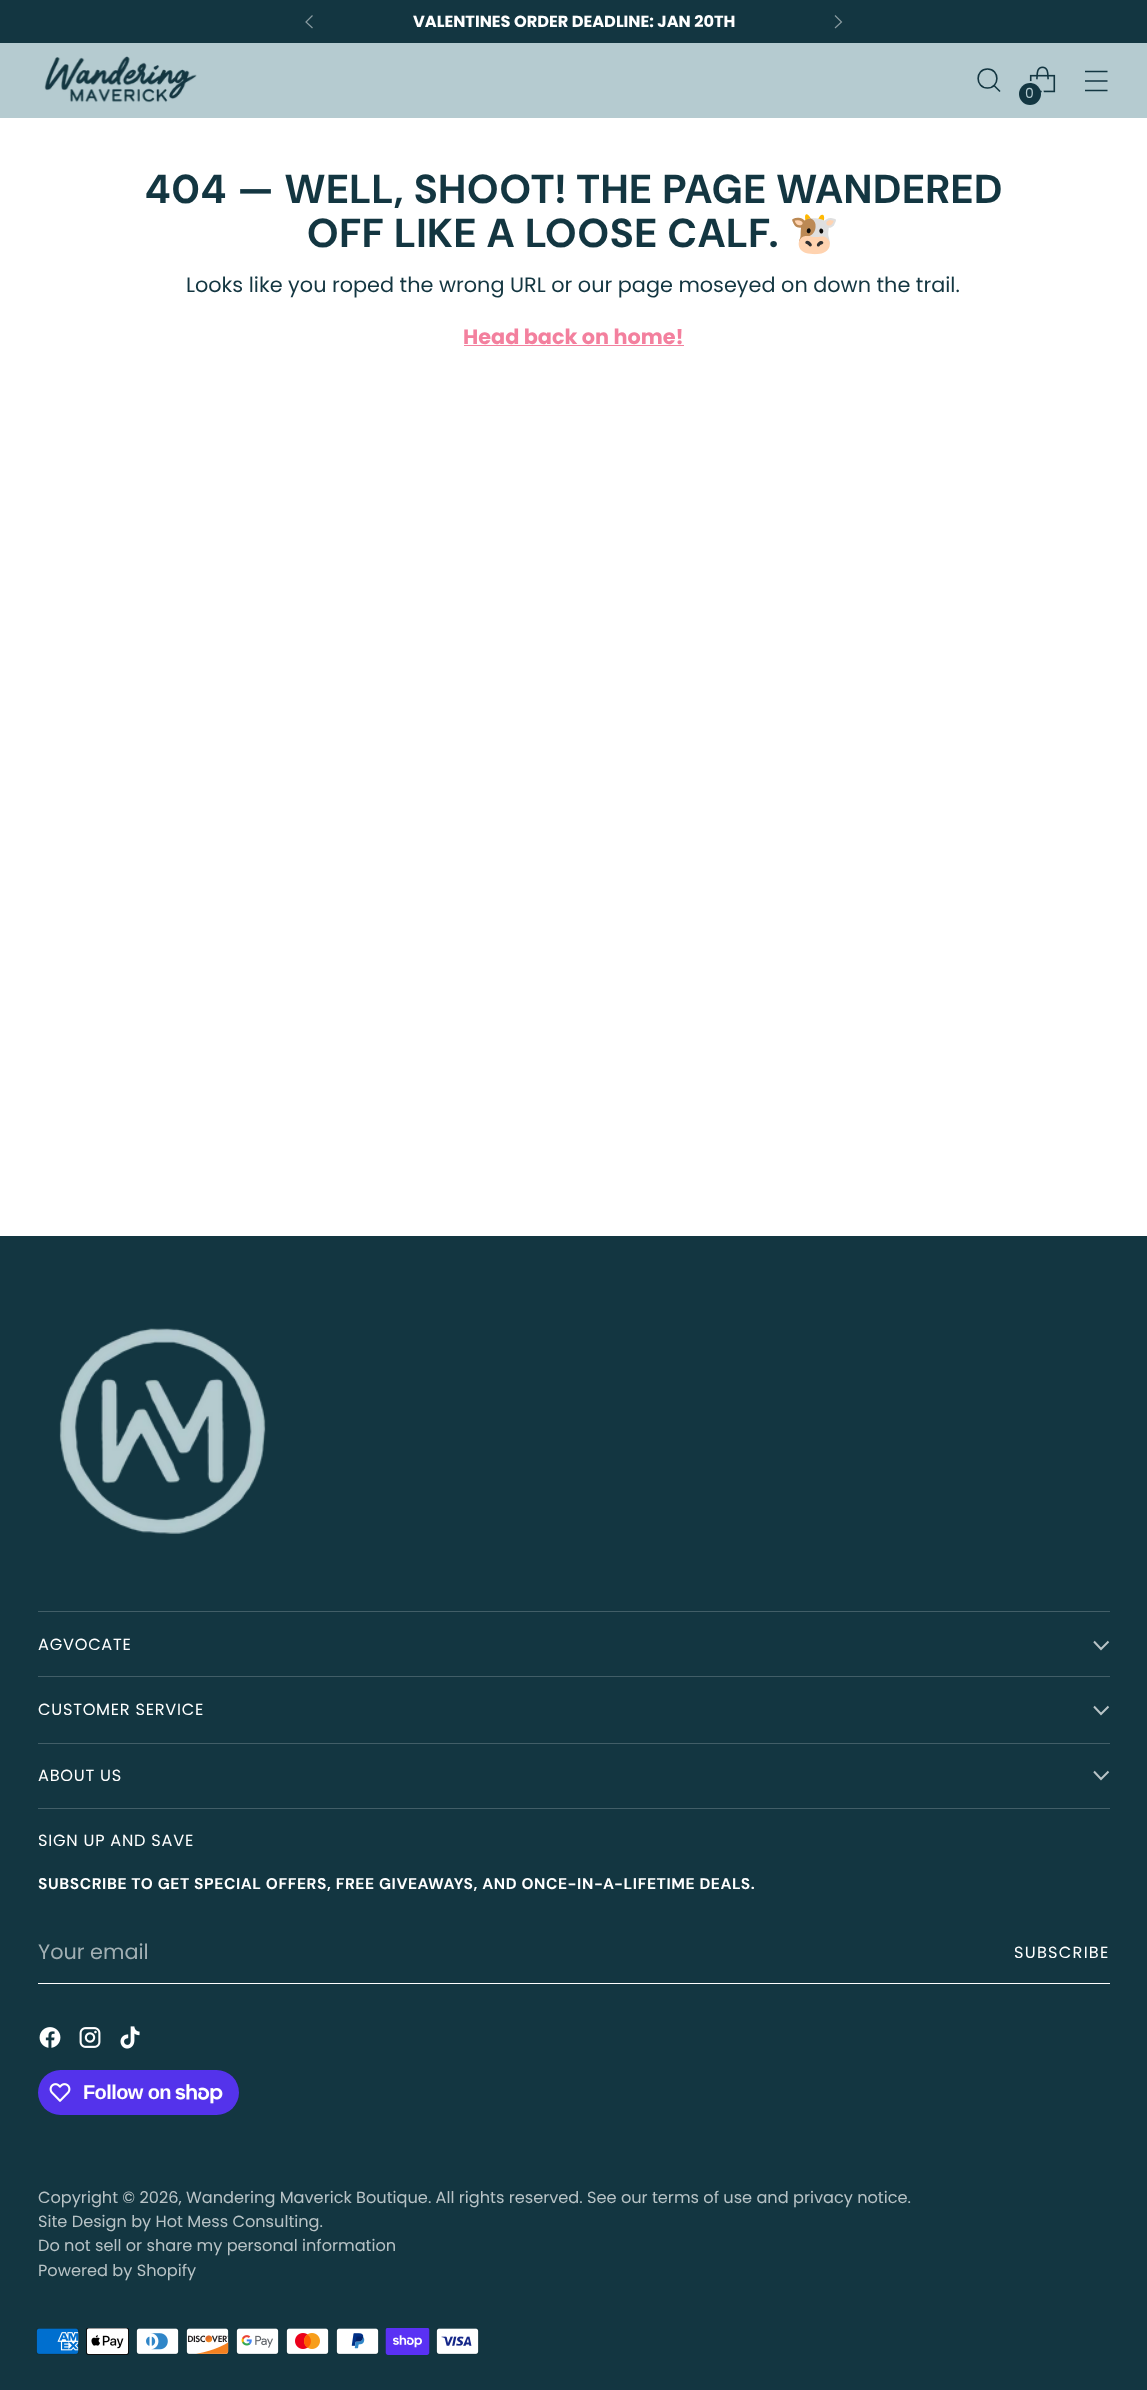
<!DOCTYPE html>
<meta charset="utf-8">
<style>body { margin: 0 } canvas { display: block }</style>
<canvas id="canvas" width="1147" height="2390"></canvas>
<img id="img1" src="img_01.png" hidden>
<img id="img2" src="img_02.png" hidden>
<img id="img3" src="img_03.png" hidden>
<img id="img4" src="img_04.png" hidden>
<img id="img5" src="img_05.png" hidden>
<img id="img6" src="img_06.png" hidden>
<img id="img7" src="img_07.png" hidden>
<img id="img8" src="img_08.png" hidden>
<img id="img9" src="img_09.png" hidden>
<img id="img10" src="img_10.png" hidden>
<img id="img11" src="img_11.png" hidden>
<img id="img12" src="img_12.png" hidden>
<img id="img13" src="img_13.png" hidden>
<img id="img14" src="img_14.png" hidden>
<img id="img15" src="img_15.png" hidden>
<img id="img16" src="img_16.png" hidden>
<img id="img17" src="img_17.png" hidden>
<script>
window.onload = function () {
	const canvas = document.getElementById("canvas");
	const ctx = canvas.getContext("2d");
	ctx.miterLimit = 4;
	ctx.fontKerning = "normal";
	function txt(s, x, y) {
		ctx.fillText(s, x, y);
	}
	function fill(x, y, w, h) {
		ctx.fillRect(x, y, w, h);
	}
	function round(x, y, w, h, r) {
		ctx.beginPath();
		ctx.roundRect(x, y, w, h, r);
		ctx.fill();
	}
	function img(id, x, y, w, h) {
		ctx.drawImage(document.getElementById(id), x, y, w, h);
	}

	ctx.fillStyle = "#FFFFFF";
	fill(0, 0, 1147, 2390);
	ctx.fillStyle = "#133641";
	fill(0, 0, 1147, 43);
	ctx.beginPath();
	ctx.moveTo(312.5, 15.5);
	ctx.lineTo(306, 22);
	ctx.lineTo(312.5, 28);
	ctx.strokeStyle = "#899BA0";
	ctx.lineWidth = 1.2;
	ctx.stroke();
	ctx.beginPath();
	ctx.moveTo(835, 28);
	ctx.lineTo(841.5, 22);
	ctx.lineTo(835, 15.5);
	ctx.stroke();
	ctx.fillStyle = "#B5CBD0";
	fill(0, 43, 1147, 75);
	img("img1", 44, 56, 153, 47);
	ctx.beginPath();
	ctx.moveTo(987.5, 88);
	ctx.bezierCurveTo(1000, 88, 1000, 69, 987.5, 69);
	ctx.bezierCurveTo(975, 69, 975, 88, 987.5, 88);
	ctx.closePath();
	ctx.strokeStyle = "#133641";
	ctx.lineWidth = 1.6;
	ctx.lineCap = "round";
	ctx.stroke();
	ctx.beginPath();
	ctx.moveTo(994, 85.5);
	ctx.lineTo(1000, 91.5);
	ctx.lineCap = "butt";
	ctx.stroke();
	img("img2", 1029, 66, 27, 27);
	ctx.beginPath();
	ctx.roundRect(1019, 82, 24, 25, 12);
	ctx.strokeStyle = "#B5CBD0";
	ctx.lineWidth = 2;
	ctx.stroke();
	ctx.fillStyle = "#133641";
	ctx.beginPath();
	ctx.arc(1030, 94, 11, 0, Math.PI * 2);
	ctx.fill();
	ctx.beginPath();
	ctx.moveTo(1085, 81);
	ctx.lineTo(1107.5, 81);
	ctx.moveTo(1085, 71.5);
	ctx.lineTo(1107.5, 71.5);
	ctx.moveTo(1085, 90.5);
	ctx.lineTo(1107.5, 90.5);
	ctx.strokeStyle = "#133641";
	ctx.lineWidth = 1.6;
	ctx.stroke();
	ctx.fillStyle = "#F3809E";
	fill(464, 345, 220, 1);
	ctx.fillStyle = "#133641";
	fill(0, 1236, 1147, 1154);
	ctx.fillStyle = "#425E67";
	fill(38, 1611, 1072, 1);
	img("img3", 59, 1328, 207, 206);
	fill(38, 1676, 1072, 1);
	ctx.beginPath();
	ctx.moveTo(1094, 1641.5);
	ctx.lineTo(1101, 1649);
	ctx.lineTo(1108.5, 1641.5);
	ctx.strokeStyle = "#B8C3C6";
	ctx.lineWidth = 2;
	ctx.stroke();
	fill(38, 1743, 1072, 1);
	ctx.beginPath();
	ctx.moveTo(1094, 1706.5);
	ctx.lineTo(1101, 1714);
	ctx.lineTo(1108.5, 1706.5);
	ctx.stroke();
	fill(38, 1808, 1072, 1);
	ctx.beginPath();
	ctx.moveTo(1094, 1771.5);
	ctx.lineTo(1101, 1779);
	ctx.lineTo(1108.5, 1771.5);
	ctx.stroke();
	ctx.fillStyle = "#FFFFFF";
	fill(38, 1983, 1072, 1);
	img("img4", 39, 2027, 22, 21);
	img("img5", 79, 2027, 22, 21);
	img("img6", 120, 2026, 20, 23);
	ctx.fillStyle = "#5433EB";
	round(38, 2070, 201, 45, 22.5);
	img("img7", 49, 2083, 22, 19);
	img("img8", 175, 2084, 48, 20);
	img("img9", 36, 2328, 43, 27);
	img("img10", 86, 2328, 43, 27);
	img("img11", 136, 2328, 43, 27);
	img("img12", 186, 2328, 43, 27);
	img("img13", 236, 2328, 43, 27);
	img("img14", 286, 2328, 43, 27);
	img("img15", 336, 2328, 43, 27);
	img("img16", 385, 2328, 45, 27);
	img("img17", 436, 2328, 43, 27);
	ctx.font = "bold 16.18px Poppins";
	ctx.fillStyle = "#FFFFFF";
	txt("VALENTINES ORDER DEADLINE: JAN 20TH", 413, 27);
	ctx.font = "14px Poppins";
	ctx.fillStyle = "#B5CBD0";
	txt("0", 1025, 98);
	ctx.letterSpacing = "1px";
	ctx.font = "bold 40.25px DM Sans";
	ctx.fillStyle = "#133641";
	txt("404 — WELL, SHOOT! THE PAGE WANDERED", 145, 203);
	txt("OFF LIKE A LOOSE CALF.", 307, 247);
	ctx.font = "bold 40.25px Noto Color Emoji";
	txt("🐮", 789, 247);
	ctx.letterSpacing = "0px";
	ctx.font = "20.8px Poppins";
	txt("Looks like you roped the wrong URL or our page moseyed on down the trail.", 186, 292);
	ctx.font = "bold 20.8px Poppins";
	ctx.fillStyle = "#F3809E";
	txt("Head back on home!", 463, 344);
	ctx.letterSpacing = "0.75px";
	ctx.font = "16.18px Poppins";
	ctx.fillStyle = "#FFFFFF";
	txt("AGVOCATE", 38, 1650);
	txt("CUSTOMER SERVICE", 38, 1715);
	txt("ABOUT US", 38, 1781);
	txt("SIGN UP AND SAVE", 38, 1846);
	ctx.letterSpacing = "0.58px";
	ctx.font = "bold 15.5px 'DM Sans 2'";
	txt("SUBSCRIBE TO GET SPECIAL OFFERS, FREE GIVEAWAYS, AND ONCE-IN-A-LIFETIME DEALS.", 38, 1889);
	ctx.letterSpacing = "0px";
	ctx.font = "20.8px Poppins";
	ctx.fillStyle = "#A1AFB3";
	txt("Your email", 38, 1959);
	ctx.letterSpacing = "1.25px";
	ctx.font = "16.18px Poppins";
	ctx.fillStyle = "#FFFFFF";
	txt("SUBSCRIBE", 1014, 1958);
	ctx.letterSpacing = "-0.6px";
	ctx.font = "bold 20px Liberation Sans";
	txt("Follow on", 83, 2099);
	ctx.letterSpacing = "0px";
	ctx.font = "16.18px Poppins";
	ctx.fillStyle = "#B8C3C6";
	txt("Copyright © 2026, Wandering Maverick Boutique. All rights reserved. See our terms of use and privacy notice.", 38, 2203);
	txt("Site Design by Hot Mess Consulting.", 38, 2227);
	txt("Do not sell or share my personal information", 38, 2251);
	txt("Powered by Shopify", 38, 2276);
};
</script>
